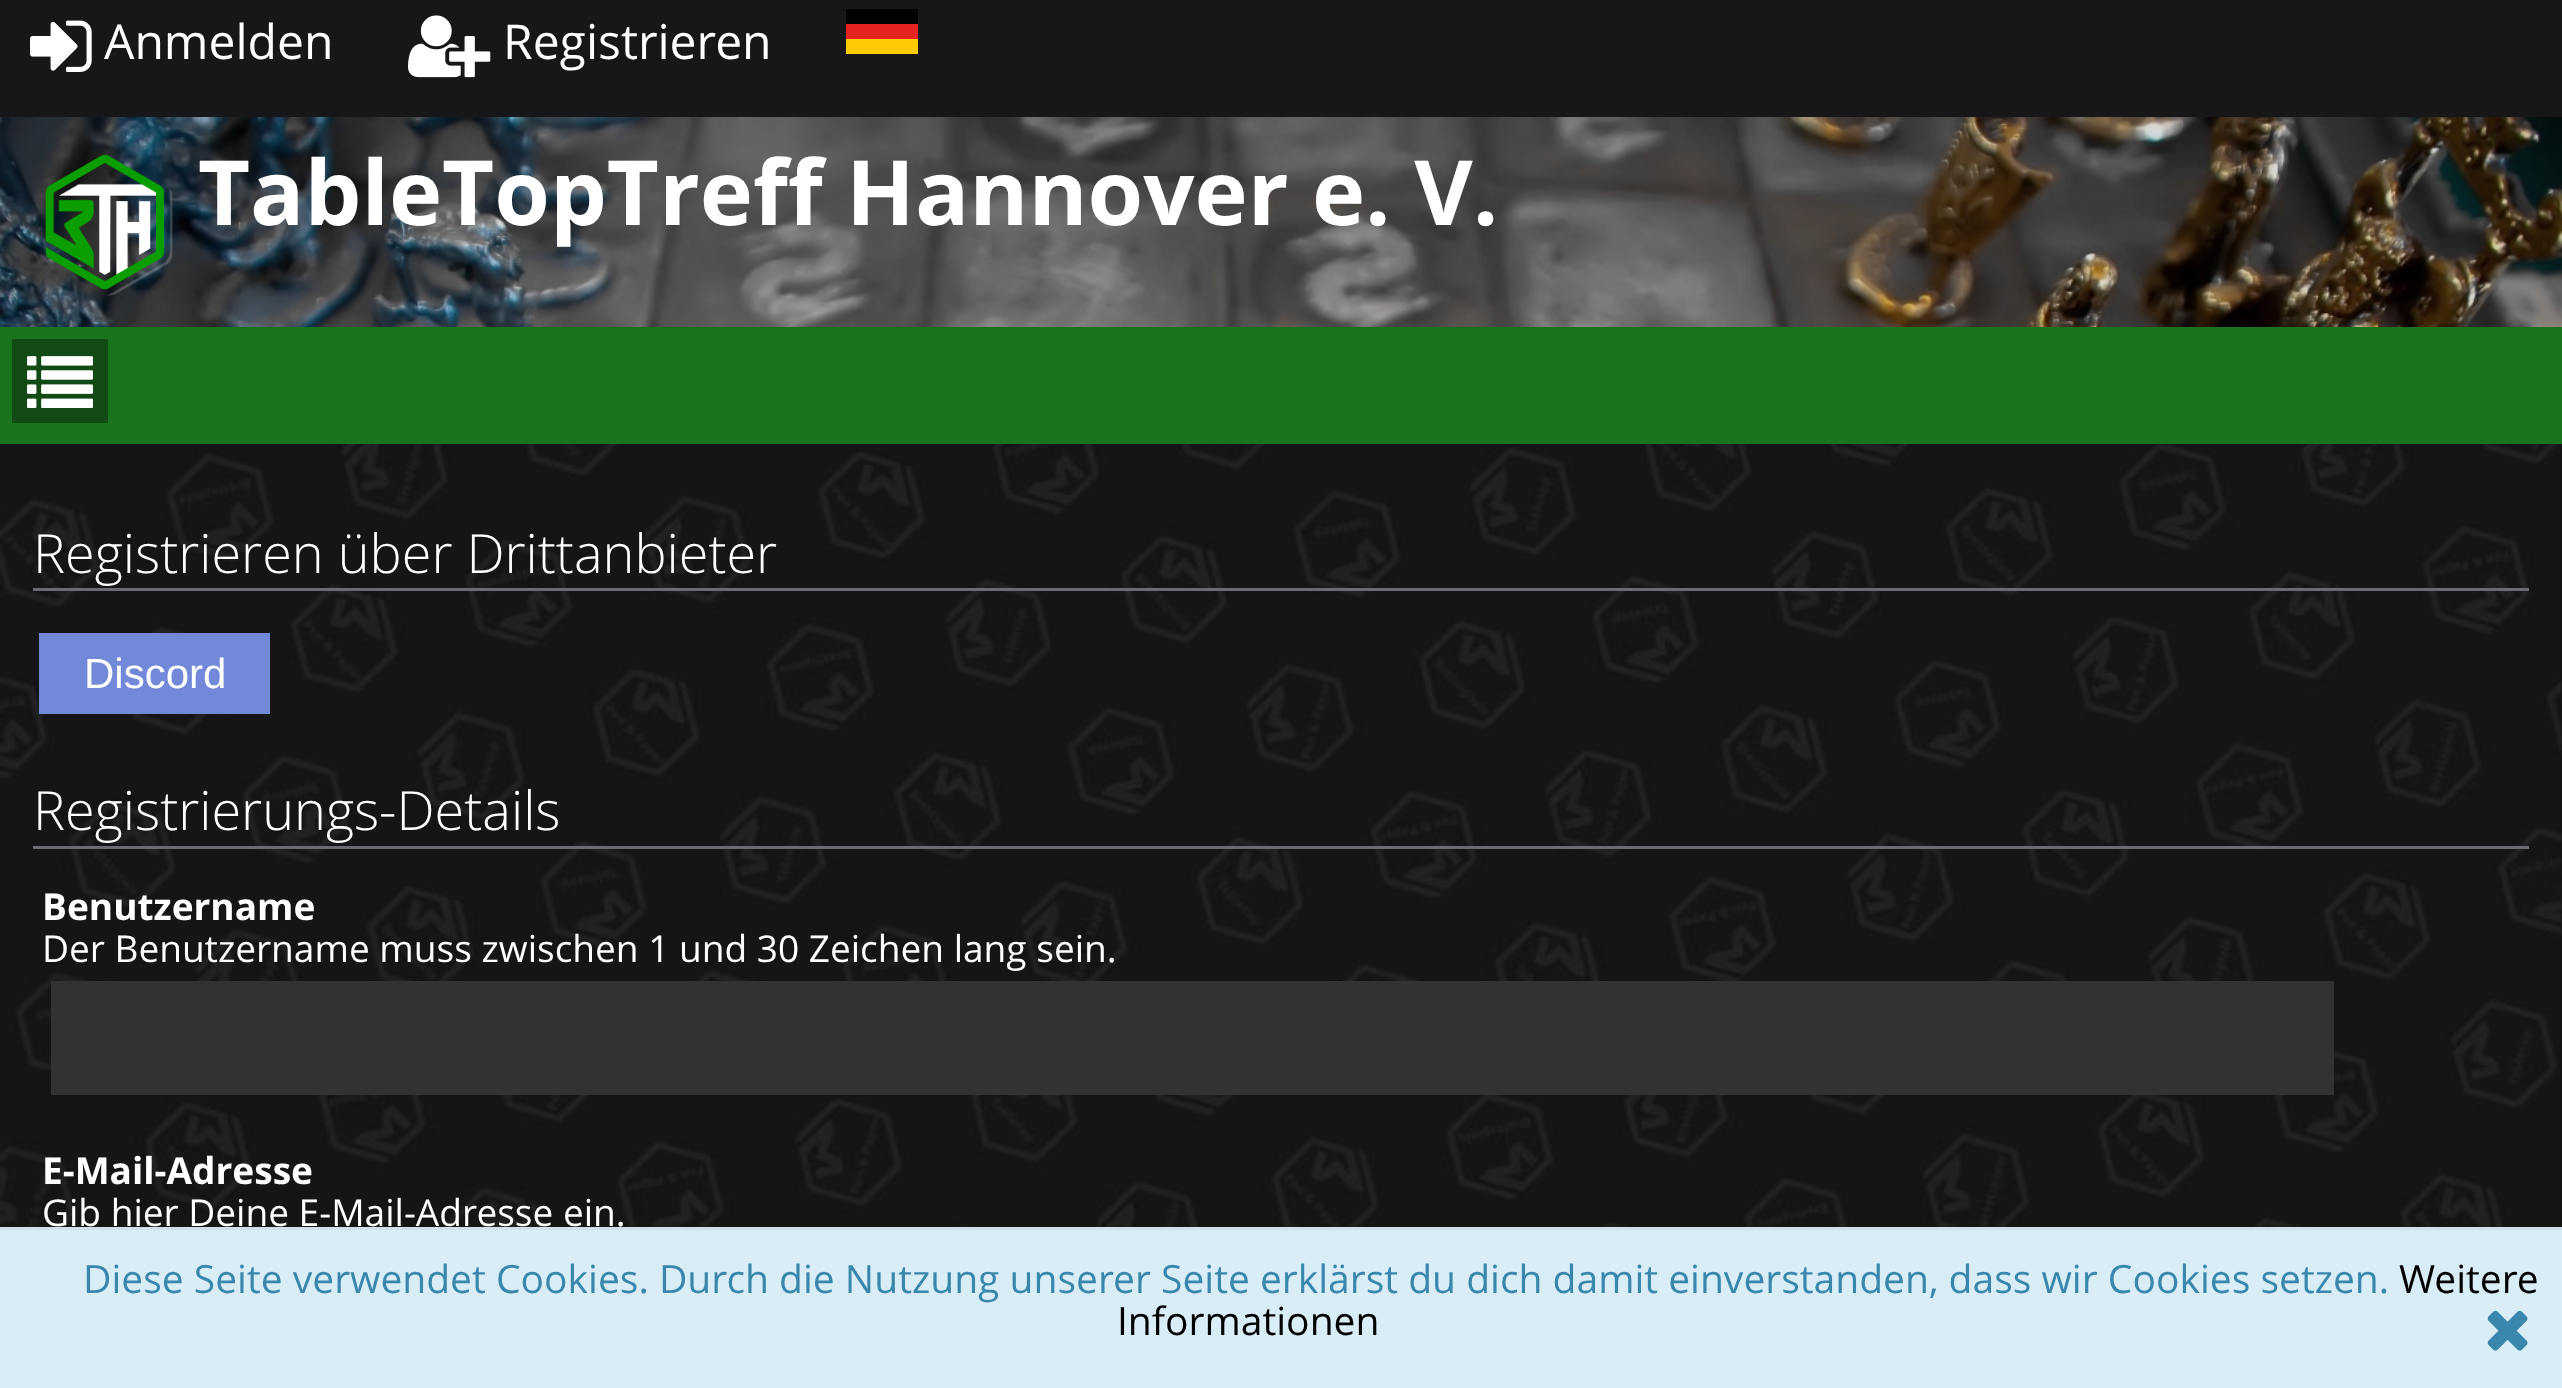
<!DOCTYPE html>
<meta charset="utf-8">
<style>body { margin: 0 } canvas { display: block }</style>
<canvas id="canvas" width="2562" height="1388"></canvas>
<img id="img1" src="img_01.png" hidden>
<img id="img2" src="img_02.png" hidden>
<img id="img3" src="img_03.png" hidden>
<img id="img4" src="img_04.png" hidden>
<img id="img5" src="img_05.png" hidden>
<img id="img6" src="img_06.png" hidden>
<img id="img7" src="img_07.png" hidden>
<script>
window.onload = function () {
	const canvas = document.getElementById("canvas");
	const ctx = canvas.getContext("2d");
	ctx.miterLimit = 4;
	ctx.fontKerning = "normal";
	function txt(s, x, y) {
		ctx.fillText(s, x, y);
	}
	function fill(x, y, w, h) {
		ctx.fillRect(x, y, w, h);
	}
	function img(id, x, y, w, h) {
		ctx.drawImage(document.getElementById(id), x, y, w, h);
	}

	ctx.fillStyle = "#151515";
	fill(0, 0, 2562, 1388);
	img("img1", 0, 444, 2562, 783);
	ctx.fillStyle = "#171719";
	fill(0, 0, 2562, 117);
	img("img2", 30, 20, 62, 52);
	img("img3", 408, 15, 83, 63);
	ctx.fillStyle = "#010202";
	fill(846, 9, 72, 15);
	ctx.fillStyle = "#E52420";
	fill(846, 24, 72, 15);
	ctx.fillStyle = "#FFCC04";
	fill(846, 39, 72, 15);
	img("img4", 0, 117, 2562, 210);
	img("img5", 45, 154, 128, 142);
	ctx.fillStyle = "#1A741D";
	fill(0, 327, 2562, 117);
	ctx.fillStyle = "#114A13";
	fill(12, 339, 96, 84);
	img("img6", 27, 356, 66, 52);
	ctx.fillStyle = "#6B6B71";
	fill(33, 588, 2496, 3);
	ctx.fillStyle = "#7289DA";
	fill(39, 633, 231, 81);
	ctx.fillStyle = "#6B6B71";
	fill(33, 846, 2496, 3);
	ctx.fillStyle = "#323235";
	fill(51, 981, 2283, 114);
	ctx.fillStyle = "#D9EDF7";
	fill(0, 1230, 2562, 158);
	ctx.fillStyle = "#CEE1EB";
	fill(0, 1227, 2562, 3);
	img("img7", 2487, 1310, 41, 41);
	ctx.font = "48px Open Sans";
	ctx.fillStyle = "#FFFFFF";
	txt("Anmelden", 104, 59);
	txt("Registrieren", 503, 59);
	ctx.font = "bold 90px Open Sans";
	txt("TableTopTreff Hannover e. V.", 198, 225);
	ctx.font = "300 54px Open Sans";
	txt("Registrieren über Drittanbieter", 33, 573);
	ctx.font = "42px Liberation Sans";
	txt("Discord", 84, 688);
	ctx.font = "300 54px Open Sans";
	txt("Registrierungs-Details", 33, 830);
	ctx.font = "bold 37.05px Open Sans";
	txt("Benutzername", 42, 920);
	ctx.font = "37.05px Open Sans";
	txt("Der Benutzername muss zwischen 1 und 30 Zeichen lang sein.", 42, 962);
	ctx.font = "bold 37.05px Open Sans";
	txt("E-Mail-Adresse", 42, 1184);
	ctx.font = "37.05px Open Sans";
	txt("Gib hier Deine E-Mail-Adresse ein.", 42, 1226);
	ctx.font = "39px Open Sans";
	ctx.fillStyle = "#3A87AD";
	txt("Diese Seite verwendet Cookies. Durch die Nutzung unserer Seite erklärst du dich damit einverstanden, dass wir Cookies setzen.", 83, 1293);
	ctx.fillStyle = "#000000";
	txt("Weitere", 2399, 1293);
	txt("Informationen", 1117, 1335);
};
</script>
